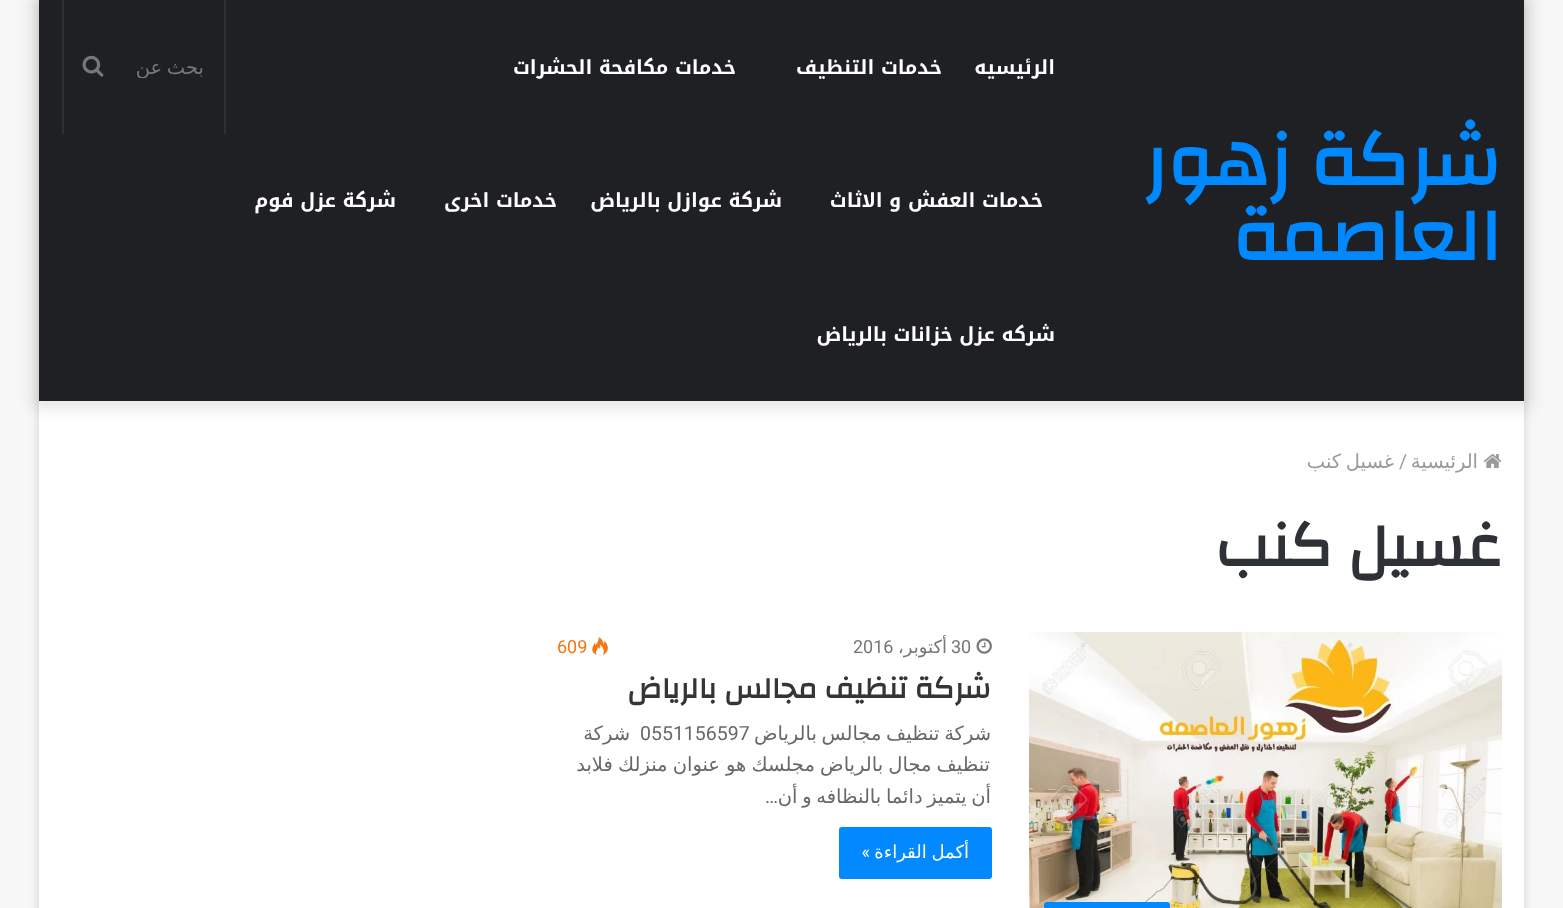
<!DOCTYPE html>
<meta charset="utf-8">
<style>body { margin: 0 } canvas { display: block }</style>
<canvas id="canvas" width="1563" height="908"></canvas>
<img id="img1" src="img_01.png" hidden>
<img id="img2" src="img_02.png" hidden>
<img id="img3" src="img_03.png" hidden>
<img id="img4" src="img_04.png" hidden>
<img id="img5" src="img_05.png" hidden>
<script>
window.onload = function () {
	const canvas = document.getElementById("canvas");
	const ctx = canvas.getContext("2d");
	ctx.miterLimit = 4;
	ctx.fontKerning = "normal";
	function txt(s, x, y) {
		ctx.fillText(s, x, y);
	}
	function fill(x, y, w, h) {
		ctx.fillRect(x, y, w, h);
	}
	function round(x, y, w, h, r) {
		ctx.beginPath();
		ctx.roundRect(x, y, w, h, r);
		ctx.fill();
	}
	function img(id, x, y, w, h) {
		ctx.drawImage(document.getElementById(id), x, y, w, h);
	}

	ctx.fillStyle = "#F7F7F7";
	fill(0, 0, 1563, 908);
	ctx.fillStyle = "rgba(171, 171, 171, 0.5)";
	ctx.filter = "blur(5px)";
	ctx.beginPath();
	ctx.rect(39, 2, 1485, 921);
	ctx.fill();
	ctx.filter = "none";
	ctx.fillStyle = "#FFFFFF";
	fill(39, 401, 1485, 507);
	ctx.fillStyle = "rgba(0, 0, 0, 0.1)";
	ctx.filter = "blur(7.5px)";
	ctx.beginPath();
	ctx.rect(32, -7, 1500, 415);
	ctx.fill();
	ctx.filter = "none";
	ctx.fillStyle = "#1F2024";
	fill(39, 0, 1485, 401);
	ctx.fillStyle = "#2F3033";
	fill(224, 0, 2, 134);
	fill(62, 0, 2, 134);
	img("img1", 82, 55, 22, 22);
	img("img2", 1483, 454, 19, 14);
	img("img3", 1029, 632, 473, 276);
	ctx.fillStyle = "#0389FF";
	round(1044, 902, 126, 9, 3);
	img("img4", 976, 638, 16, 16);
	img("img5", 592, 637, 16, 18);
	round(839, 827, 153, 52, 3);
	ctx.direction = "rtl";
	ctx.font = "bold 75px Changa";
	ctx.fillStyle = "#0088FF";
	txt("شركة زهور", 1501, 185);
	txt("العاصمة", 1501, 260);
	ctx.font = "bold 19.5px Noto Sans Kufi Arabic";
	ctx.fillStyle = "#FFFFFF";
	txt("الرئيسيه", 1055, 74);
	txt("خدمات التنظيف", 942, 74);
	txt("خدمات مكافحة الحشرات", 736, 74);
	txt("خدمات العفش و الاثاث", 1043, 207);
	txt("شركة عوازل بالرياض", 782, 207);
	txt("خدمات اخرى", 557, 207);
	txt("شركة عزل فوم", 396, 207);
	txt("شركه عزل خزانات بالرياض", 1055, 341);
	ctx.save();
	ctx.beginPath();
	ctx.rect(116, 56, 88, 22);
	ctx.clip();
	ctx.wordSpacing = "-1.5px";
	ctx.font = "19.5px DejaVu Sans";
	ctx.fillStyle = "#777777";
	txt("بحث عن", 204, 74);
	ctx.restore();
	ctx.font = "19.5px DejaVu Sans";
	ctx.fillStyle = "#9A9A9A";
	txt("الرئيسية", 1478, 468);
	ctx.direction = "ltr";
	ctx.font = "19.5px Roboto";
	txt("/", 1399, 468);
	ctx.wordSpacing = "-1.5px";
	ctx.direction = "rtl";
	ctx.font = "19.5px DejaVu Sans";
	txt("غسيل كنب", 1394, 468);
	ctx.wordSpacing = "0px";
	ctx.font = "bold 61.5px Changa";
	ctx.fillStyle = "#2E3136";
	txt("غسيل كنب", 1501, 566);
	ctx.direction = "ltr";
	ctx.font = "18px Roboto";
	ctx.fillStyle = "#777777";
	txt("30", 951, 653);
	ctx.direction = "rtl";
	ctx.font = "18px DejaVu Sans";
	txt("أكتوبر،", 947, 653);
	ctx.direction = "ltr";
	ctx.font = "18px Roboto";
	txt("2016", 853, 653);
	ctx.fillStyle = "#F47614";
	txt("609", 557, 653);
	ctx.direction = "rtl";
	ctx.font = "bold 30px Changa";
	ctx.fillStyle = "#353535";
	txt("شركة تنظيف مجالس بالرياض", 991, 698);
	ctx.wordSpacing = "-1.5px";
	ctx.font = "19.5px DejaVu Sans";
	ctx.fillStyle = "#686868";
	txt("شركة تنظيف مجالس بالرياض", 991, 740);
	ctx.wordSpacing = "0px";
	ctx.direction = "ltr";
	ctx.font = "19.5px Roboto";
	txt("0551156597", 640, 740);
	ctx.direction = "rtl";
	ctx.font = "19.5px DejaVu Sans";
	txt("شركة", 630, 740);
	ctx.wordSpacing = "-1px";
	txt("تنظيف مجال بالرياض مجلسك هو", 990, 771);
	txt("عنوان منزلك فلابد", 720, 771);
	ctx.wordSpacing = "-1.5px";
	txt("أن يتميز دائما بالنظافه و أن", 991, 803);
	ctx.wordSpacing = "0px";
	ctx.font = "19.5px Roboto";
	txt("…", 778, 803);
	ctx.wordSpacing = "-1px";
	ctx.font = "18px DejaVu Sans";
	ctx.fillStyle = "#FFFFFF";
	txt("أكمل القراءة", 969, 858);
	ctx.wordSpacing = "0px";
	ctx.font = "18px Roboto";
	txt("»", 870, 858);
};
</script>
